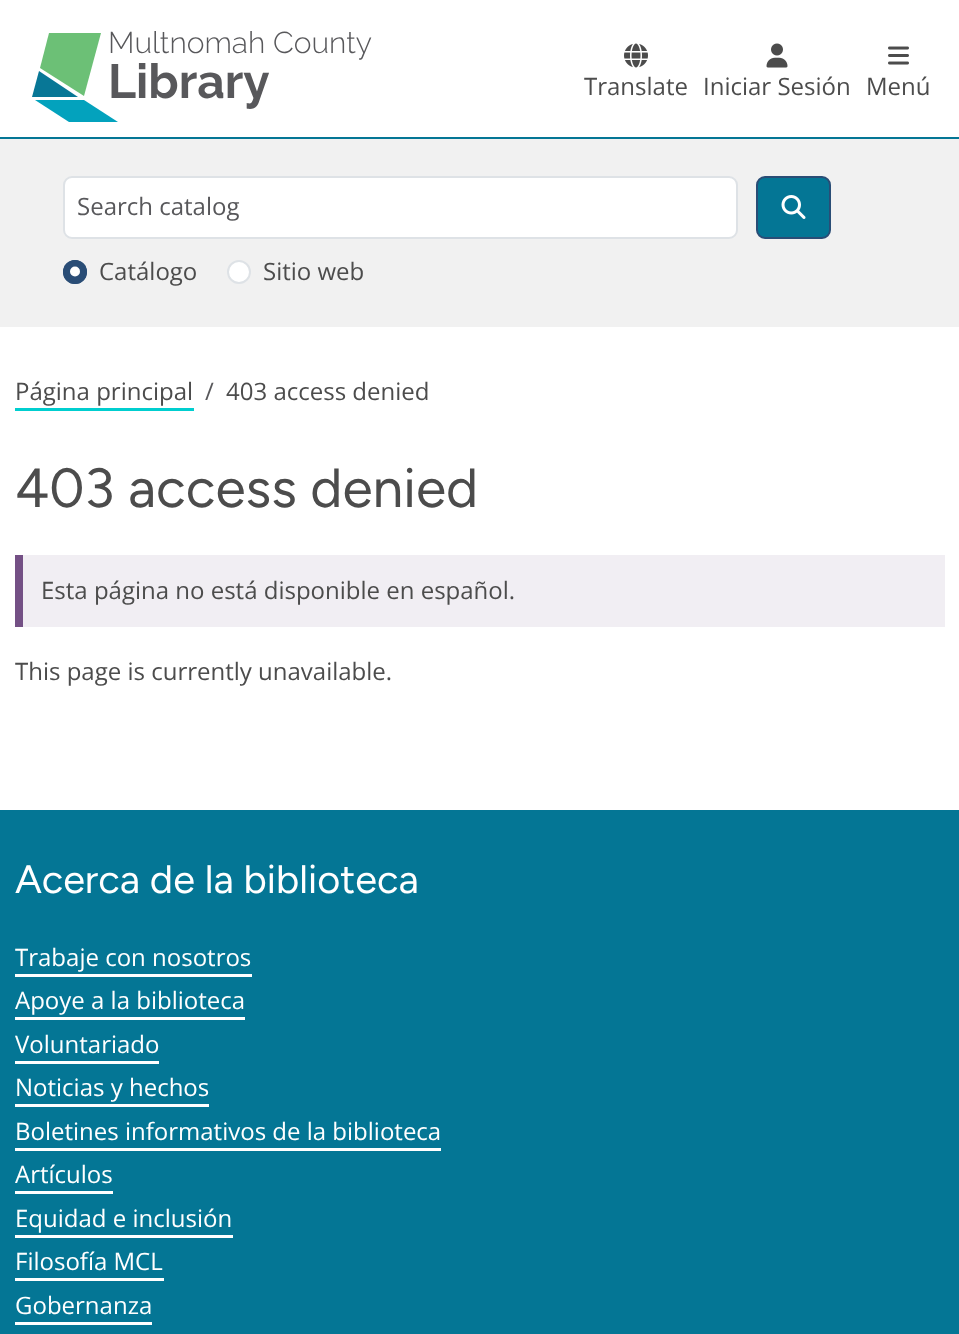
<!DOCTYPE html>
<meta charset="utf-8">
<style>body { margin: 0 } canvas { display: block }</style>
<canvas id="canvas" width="959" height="1334"></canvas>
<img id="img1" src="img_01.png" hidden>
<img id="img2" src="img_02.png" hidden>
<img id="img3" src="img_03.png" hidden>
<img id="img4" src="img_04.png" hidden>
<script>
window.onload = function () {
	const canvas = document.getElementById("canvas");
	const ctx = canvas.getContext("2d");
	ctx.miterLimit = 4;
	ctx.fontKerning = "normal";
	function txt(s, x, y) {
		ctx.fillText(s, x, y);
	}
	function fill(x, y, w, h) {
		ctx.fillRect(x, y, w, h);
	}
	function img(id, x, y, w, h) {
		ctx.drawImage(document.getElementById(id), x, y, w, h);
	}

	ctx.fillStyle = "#FFFFFF";
	fill(0, 0, 959, 1334);
	ctx.fillStyle = "#6CC076";
	ctx.beginPath();
	ctx.moveTo(40, 68);
	ctx.lineTo(49, 33);
	ctx.lineTo(101, 33);
	ctx.lineTo(84, 96);
	ctx.closePath();
	ctx.fill();
	ctx.fillStyle = "#087796";
	ctx.beginPath();
	ctx.moveTo(39, 71);
	ctx.lineTo(32, 97);
	ctx.lineTo(78, 97);
	ctx.closePath();
	ctx.fill();
	ctx.fillStyle = "#03A2BD";
	ctx.beginPath();
	ctx.moveTo(35, 100);
	ctx.lineTo(69, 122);
	ctx.lineTo(118, 122);
	ctx.lineTo(84, 100);
	ctx.closePath();
	ctx.fill();
	img("img1", 624, 43, 24, 25);
	img("img2", 766, 43, 22, 25);
	img("img3", 888, 46, 21, 19);
	ctx.fillStyle = "#F1F1F1";
	fill(0, 139, 959, 188);
	ctx.fillStyle = "#047695";
	fill(0, 137, 959, 2);
	ctx.fillStyle = "#FFFFFF";
	ctx.beginPath();
	ctx.roundRect(64, 177, 673, 61, 8);
	ctx.fill();
	ctx.strokeStyle = "#DEE2E6";
	ctx.lineWidth = 2;
	ctx.stroke();
	ctx.fillStyle = "#2A4D76";
	ctx.beginPath();
	ctx.arc(75, 272, 12, 0, Math.PI * 2);
	ctx.fill();
	ctx.fillStyle = "#FFFFFF";
	ctx.beginPath();
	ctx.arc(75, 271.5, 5, 0, Math.PI * 2);
	ctx.fill();
	ctx.beginPath();
	ctx.arc(75, 272, 11, 0, Math.PI * 2);
	ctx.strokeStyle = "#2A4D76";
	ctx.stroke();
	ctx.beginPath();
	ctx.arc(239, 272, 11, 0, Math.PI * 2);
	ctx.fill();
	ctx.strokeStyle = "#DEE2E6";
	ctx.stroke();
	ctx.fillStyle = "#047695";
	ctx.beginPath();
	ctx.roundRect(757, 177, 73, 61, 8);
	ctx.fill();
	ctx.strokeStyle = "#2A4D76";
	ctx.stroke();
	img("img4", 781, 195, 25, 24);
	ctx.fillStyle = "#00CECF";
	fill(15, 408, 179, 3);
	ctx.fillStyle = "#F1EEF3";
	fill(23, 555, 922, 72);
	ctx.fillStyle = "#745085";
	fill(15, 555, 8, 72);
	ctx.fillStyle = "#047695";
	fill(0, 810, 959, 524);
	ctx.fillStyle = "#FFFFFF";
	fill(15, 974, 237, 3);
	fill(15, 1017, 230, 3);
	fill(15, 1061, 144, 3);
	fill(15, 1104, 194, 3);
	fill(15, 1148, 426, 3);
	fill(15, 1191, 98, 3);
	fill(15, 1235, 218, 3);
	fill(15, 1278, 149, 3);
	fill(15, 1322, 137, 3);
	ctx.font = "300 30px Raleway";
	ctx.fillStyle = "#58585B";
	txt("Multnomah County", 108, 53);
	ctx.font = "bold 48px Raleway";
	txt("Library", 108, 98);
	ctx.font = "24px Open Sans";
	ctx.fillStyle = "#4C4C4C";
	txt("Translate", 584, 95);
	txt("Iniciar Sesión", 703, 95);
	txt("Menú", 866, 95);
	ctx.fillStyle = "#58585B";
	txt("Search catalog", 77, 215);
	ctx.fillStyle = "#4C4C4C";
	txt("Catálogo", 99, 280);
	txt("Sitio web", 263, 280);
	txt("Página principal", 15, 400);
	ctx.fillStyle = "#58585B";
	txt("/", 205, 400);
	ctx.fillStyle = "#4C4C4C";
	txt("403 access denied", 226, 400);
	ctx.font = "55px Figtree";
	txt("403 access denied", 15, 507);
	ctx.font = "24px Open Sans";
	txt("Esta página no está disponible en español.", 41, 599);
	txt("This page is currently unavailable.", 15, 680);
	ctx.font = "39.75px Figtree";
	ctx.fillStyle = "#FFFFFF";
	txt("Acerca de la biblioteca", 15, 893);
	ctx.font = "24px Open Sans";
	txt("Trabaje con nosotros", 15, 966);
	txt("Apoye a la biblioteca", 15, 1009);
	txt("Voluntariado", 15, 1053);
	txt("Noticias y hechos", 15, 1096);
	txt("Boletines informativos de la biblioteca", 15, 1140);
	txt("Artículos", 15, 1183);
	txt("Equidad e inclusión", 15, 1227);
	txt("Filosofía MCL", 15, 1270);
	txt("Gobernanza", 15, 1314);
};
</script>
